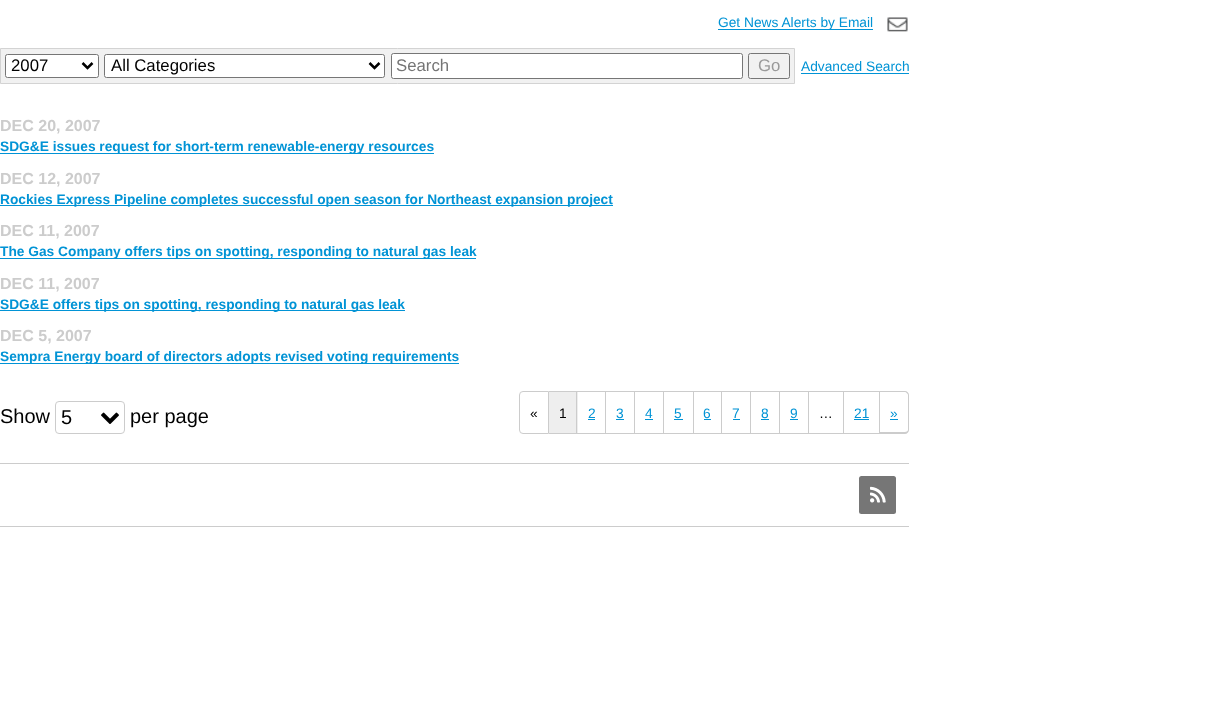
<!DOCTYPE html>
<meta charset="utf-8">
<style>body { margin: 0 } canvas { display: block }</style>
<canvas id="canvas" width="1221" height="715"></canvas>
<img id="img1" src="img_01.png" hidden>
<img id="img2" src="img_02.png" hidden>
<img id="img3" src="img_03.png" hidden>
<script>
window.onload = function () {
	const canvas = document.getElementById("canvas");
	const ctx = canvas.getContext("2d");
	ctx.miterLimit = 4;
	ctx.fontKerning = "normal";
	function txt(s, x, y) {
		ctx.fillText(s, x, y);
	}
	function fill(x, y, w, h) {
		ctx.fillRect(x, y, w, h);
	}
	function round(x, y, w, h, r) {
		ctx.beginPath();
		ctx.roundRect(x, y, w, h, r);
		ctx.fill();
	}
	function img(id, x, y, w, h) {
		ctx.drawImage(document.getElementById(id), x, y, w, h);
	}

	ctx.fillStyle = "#FFFFFF";
	fill(0, 0, 1221, 715);
	ctx.fillStyle = "#0193D5";
	fill(718, 29, 155, 1);
	img("img1", 887, 17, 21, 15);
	ctx.fillStyle = "#F1F1F1";
	ctx.beginPath();
	ctx.rect(0.5, 48.5, 794, 35);
	ctx.fill();
	ctx.strokeStyle = "#D3D3D3";
	ctx.stroke();
	ctx.fillStyle = "#FFFFFF";
	ctx.beginPath();
	ctx.roundRect(5.5, 54.5, 93, 23, 2);
	ctx.fill();
	ctx.strokeStyle = "#767676";
	ctx.stroke();
	ctx.beginPath();
	ctx.moveTo(82.5, 63);
	ctx.lineTo(87.5, 68);
	ctx.lineTo(92.5, 63);
	ctx.strokeStyle = "#000000";
	ctx.lineWidth = 2.5;
	ctx.stroke();
	ctx.beginPath();
	ctx.roundRect(104.5, 54.5, 280, 23, 2);
	ctx.fill();
	ctx.strokeStyle = "#767676";
	ctx.lineWidth = 1;
	ctx.stroke();
	ctx.beginPath();
	ctx.moveTo(369.5, 63);
	ctx.lineTo(374.5, 68);
	ctx.lineTo(379.5, 63);
	ctx.strokeStyle = "#000000";
	ctx.lineWidth = 2.5;
	ctx.stroke();
	ctx.beginPath();
	ctx.roundRect(391.5, 53.5, 351, 25, 2);
	ctx.fill();
	ctx.strokeStyle = "#767676";
	ctx.lineWidth = 1;
	ctx.stroke();
	ctx.beginPath();
	ctx.roundRect(748.5, 53.5, 41, 25, 2);
	ctx.stroke();
	ctx.fillStyle = "#0193D5";
	fill(801, 73, 108, 1);
	fill(0, 153, 434, 1);
	fill(0, 205, 613, 1);
	fill(0, 258, 476, 1);
	fill(0, 310, 405, 1);
	fill(0, 363, 459, 1);
	ctx.beginPath();
	ctx.roundRect(55.5, 401.5, 69, 32, 3.5);
	ctx.strokeStyle = "#CCCCCC";
	ctx.stroke();
	img("img2", 101, 412, 18, 12);
	ctx.beginPath();
	ctx.roundRect(519.5, 391.5, 29, 42, [3.5, 0, 0, 3.5]);
	ctx.stroke();
	ctx.fillStyle = "#EEEEEE";
	fill(549, 392, 29, 41);
	ctx.fillStyle = "#CCCCCC";
	fill(549, 391, 331, 1);
	fill(576, 391, 1, 43);
	fill(549, 433, 29, 1);
	fill(605, 391, 1, 43);
	fill(578, 433, 28, 1);
	ctx.fillStyle = "#0193D5";
	fill(588, 419, 7, 1);
	ctx.fillStyle = "#CCCCCC";
	fill(634, 391, 1, 43);
	fill(606, 433, 29, 1);
	ctx.fillStyle = "#0193D5";
	fill(616, 419, 8, 1);
	ctx.fillStyle = "#CCCCCC";
	fill(663, 391, 1, 43);
	fill(635, 433, 29, 1);
	ctx.fillStyle = "#0193D5";
	fill(645, 419, 8, 1);
	ctx.fillStyle = "#CCCCCC";
	fill(693, 391, 1, 43);
	fill(664, 433, 30, 1);
	ctx.fillStyle = "#0193D5";
	fill(674, 419, 9, 1);
	ctx.fillStyle = "#CCCCCC";
	fill(721, 391, 1, 43);
	fill(694, 433, 29, 1);
	ctx.fillStyle = "#0193D5";
	fill(704, 419, 7, 1);
	ctx.fillStyle = "#CCCCCC";
	fill(750, 391, 1, 43);
	fill(723, 433, 28, 1);
	ctx.fillStyle = "#0193D5";
	fill(733, 419, 7, 1);
	ctx.fillStyle = "#CCCCCC";
	fill(779, 391, 1, 43);
	fill(751, 433, 29, 1);
	ctx.fillStyle = "#0193D5";
	fill(761, 419, 8, 1);
	ctx.fillStyle = "#CCCCCC";
	fill(808, 391, 1, 43);
	fill(780, 433, 29, 1);
	ctx.fillStyle = "#0193D5";
	fill(790, 419, 8, 1);
	ctx.fillStyle = "#CCCCCC";
	fill(843, 391, 1, 43);
	fill(809, 433, 35, 1);
	fill(879, 391, 1, 43);
	fill(844, 433, 36, 1);
	ctx.fillStyle = "#0193D5";
	fill(854, 419, 15, 1);
	ctx.fillStyle = "#CCCCCC";
	ctx.beginPath();
	ctx.moveTo(880, 391);
	ctx.lineTo(905, 391);
	ctx.bezierCurveTo(907, 391, 909, 393, 909, 395);
	ctx.lineTo(909, 430);
	ctx.bezierCurveTo(909, 432, 907, 434, 905, 434);
	ctx.lineTo(880, 434);
	ctx.closePath();
	ctx.moveTo(880, 392);
	ctx.lineTo(905, 392);
	ctx.bezierCurveTo(906, 392, 908, 394, 908, 395);
	ctx.lineTo(908, 430);
	ctx.bezierCurveTo(908, 431, 906, 432, 905, 432);
	ctx.lineTo(880, 432);
	ctx.closePath();
	ctx.fill("evenodd");
	ctx.fillStyle = "#0193D5";
	fill(890, 419, 8, 1);
	ctx.fillStyle = "#CCCCCC";
	fill(0, 463, 909, 1);
	fill(0, 526, 909, 1);
	ctx.fillStyle = "#767676";
	round(859, 476, 37, 38, 2.5);
	img("img3", 870, 486, 16, 17);
	ctx.font = "13.75px Liberation Sans";
	ctx.fillStyle = "#0193D5";
	txt("Get News Alerts by Email", 718, 27);
	ctx.font = "16.75px Liberation Sans";
	ctx.fillStyle = "#000000";
	txt("2007", 11, 71);
	txt("All Categories", 111, 71);
	ctx.fillStyle = "#757575";
	txt("Search", 396, 71);
	ctx.fillStyle = "#999999";
	txt("Go", 758, 71);
	ctx.font = "13.75px Liberation Sans";
	ctx.fillStyle = "#0193D5";
	txt("Advanced Search", 801, 71);
	ctx.font = "bold 16px Liberation Sans";
	ctx.fillStyle = "#CCCCCC";
	txt("DEC 20, 2007", 0, 131);
	ctx.font = "bold 13.75px Liberation Sans";
	ctx.fillStyle = "#0193D5";
	txt("SDG&E issues request for short-term renewable-energy resources", 0, 151);
	ctx.font = "bold 16px Liberation Sans";
	ctx.fillStyle = "#CCCCCC";
	txt("DEC 12, 2007", 0, 184);
	ctx.font = "bold 13.75px Liberation Sans";
	ctx.fillStyle = "#0193D5";
	txt("Rockies Express Pipeline completes successful open season for Northeast expansion project", 0, 204);
	ctx.font = "bold 16px Liberation Sans";
	ctx.fillStyle = "#CCCCCC";
	txt("DEC 11, 2007", 0, 236);
	ctx.font = "bold 13.75px Liberation Sans";
	ctx.fillStyle = "#0193D5";
	txt("The Gas Company offers tips on spotting, responding to natural gas leak", 0, 256);
	ctx.font = "bold 16px Liberation Sans";
	ctx.fillStyle = "#CCCCCC";
	txt("DEC 11, 2007", 0, 289);
	ctx.font = "bold 13.75px Liberation Sans";
	ctx.fillStyle = "#0193D5";
	txt("SDG&E offers tips on spotting, responding to natural gas leak", 0, 309);
	ctx.font = "bold 16px Liberation Sans";
	ctx.fillStyle = "#CCCCCC";
	txt("DEC 5, 2007", 0, 341);
	ctx.font = "bold 13.75px Liberation Sans";
	ctx.fillStyle = "#0193D5";
	txt("Sempra Energy board of directors adopts revised voting requirements", 0, 361);
	ctx.font = "20px Liberation Sans";
	ctx.fillStyle = "#000000";
	txt("Show", 0, 423);
	txt("5", 61, 424);
	txt("per page", 130, 423);
	ctx.font = "13.75px Liberation Sans";
	txt("«", 530, 418);
	txt("1", 559, 418);
	ctx.fillStyle = "#0193D5";
	txt("2", 588, 418);
	txt("3", 616, 418);
	txt("4", 645, 418);
	txt("5", 674, 418);
	txt("6", 703, 418);
	txt("7", 732, 418);
	txt("8", 761, 418);
	txt("9", 790, 418);
	ctx.fillStyle = "#000000";
	txt("…", 819, 418);
	ctx.fillStyle = "#0193D5";
	txt("21", 854, 418);
	txt("»", 890, 418);
};
</script>
